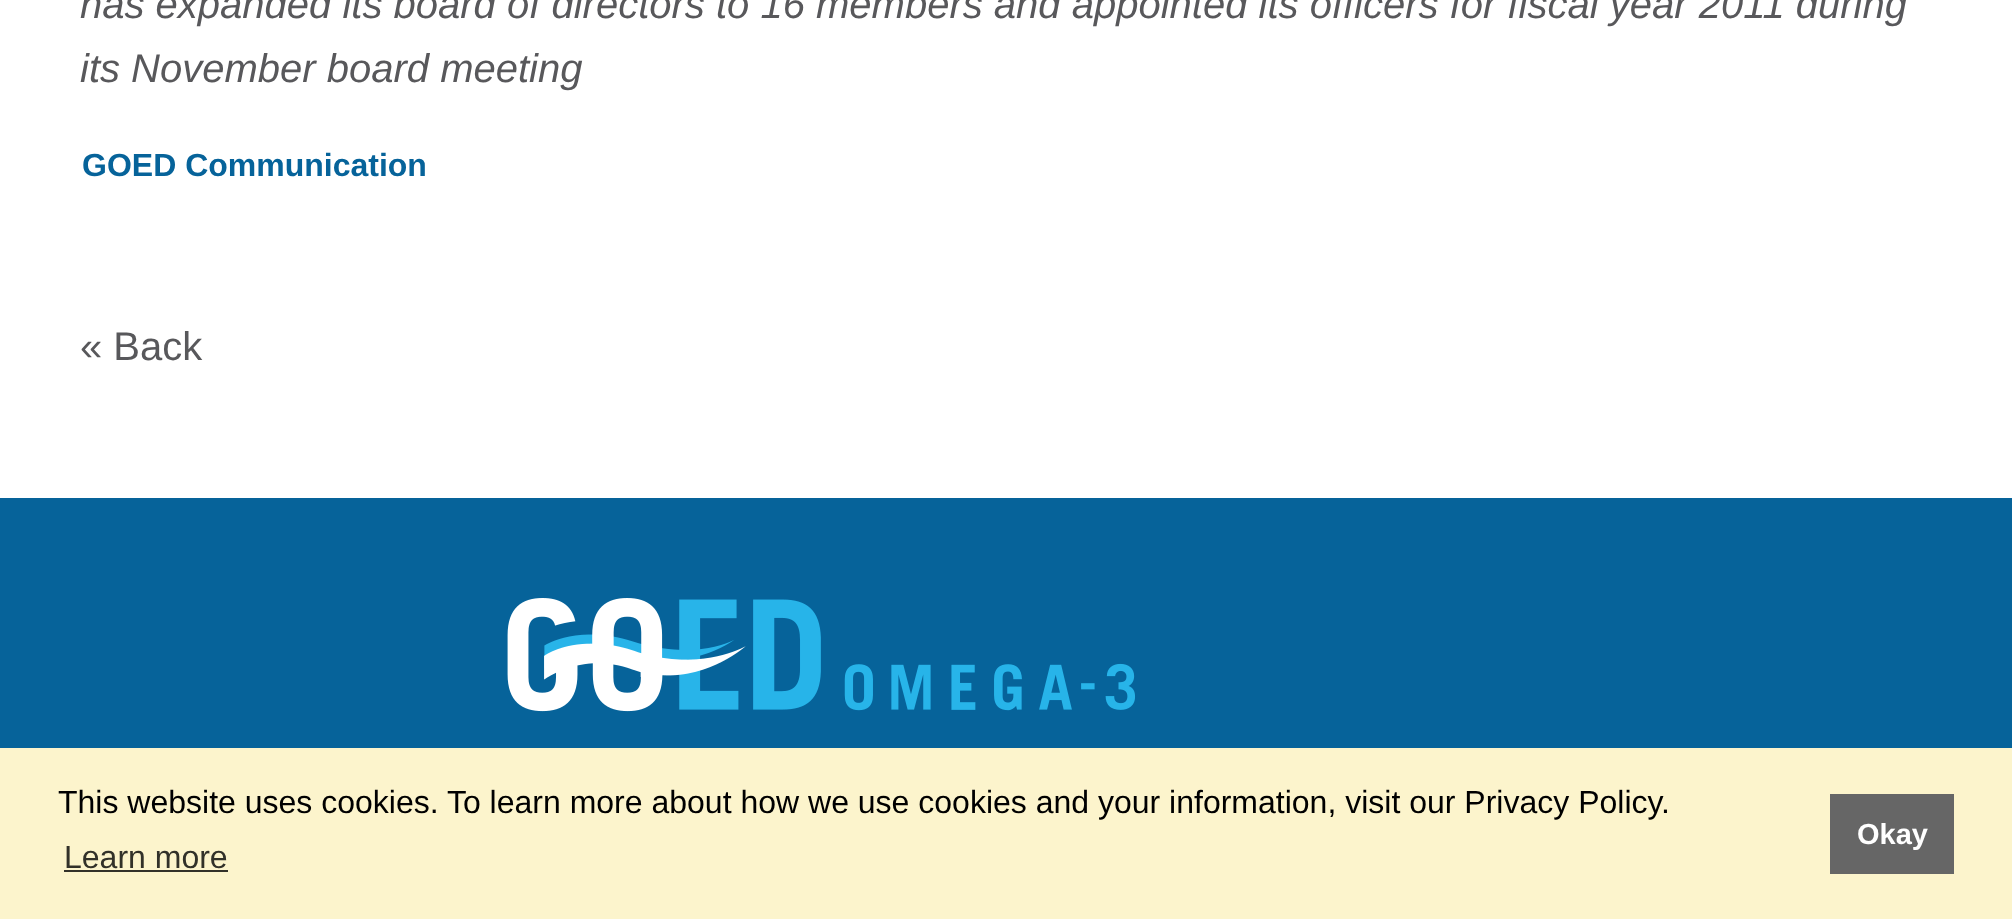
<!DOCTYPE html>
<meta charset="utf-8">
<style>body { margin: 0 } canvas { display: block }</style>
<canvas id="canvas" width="2012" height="919"></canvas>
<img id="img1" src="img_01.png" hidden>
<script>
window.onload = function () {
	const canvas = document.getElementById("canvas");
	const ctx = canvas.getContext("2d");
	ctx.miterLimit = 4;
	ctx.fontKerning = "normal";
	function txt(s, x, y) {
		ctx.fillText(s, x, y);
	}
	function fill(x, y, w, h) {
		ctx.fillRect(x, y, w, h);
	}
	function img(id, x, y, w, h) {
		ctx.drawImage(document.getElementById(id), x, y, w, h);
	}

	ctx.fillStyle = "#06639A";
	fill(0, 0, 2012, 919);
	ctx.fillStyle = "#FFFFFF";
	fill(0, 0, 2012, 498);
	img("img1", 507, 598, 629, 114);
	ctx.fillStyle = "#FCF4CC";
	fill(0, 748, 2012, 171);
	ctx.fillStyle = "#323129";
	fill(64, 870, 164, 2);
	ctx.fillStyle = "#666666";
	fill(1830, 794, 124, 80);
	ctx.font = "italic 40px Liberation Sans";
	ctx.fillStyle = "#58585B";
	txt("has expanded its board of directors to 16 members and appointed its officers for fiscal year 2011 during", 80, 18);
	txt("its November board meeting", 80, 82);
	ctx.font = "bold 32px Liberation Sans";
	ctx.fillStyle = "#06639A";
	txt("GOED Communication", 82, 176);
	ctx.font = "40px Liberation Sans";
	ctx.fillStyle = "#58585B";
	txt("« Back", 80, 360);
	ctx.font = "32px Liberation Sans";
	ctx.fillStyle = "#000000";
	txt("This website uses cookies. To learn more about how we use cookies and your information, visit our Privacy Policy.", 58, 813);
	ctx.fillStyle = "#323129";
	txt("Learn more", 64, 868);
	ctx.font = "bold 29px Liberation Sans";
	ctx.fillStyle = "#FFFFFF";
	txt("Okay", 1857, 844);
};
</script>
